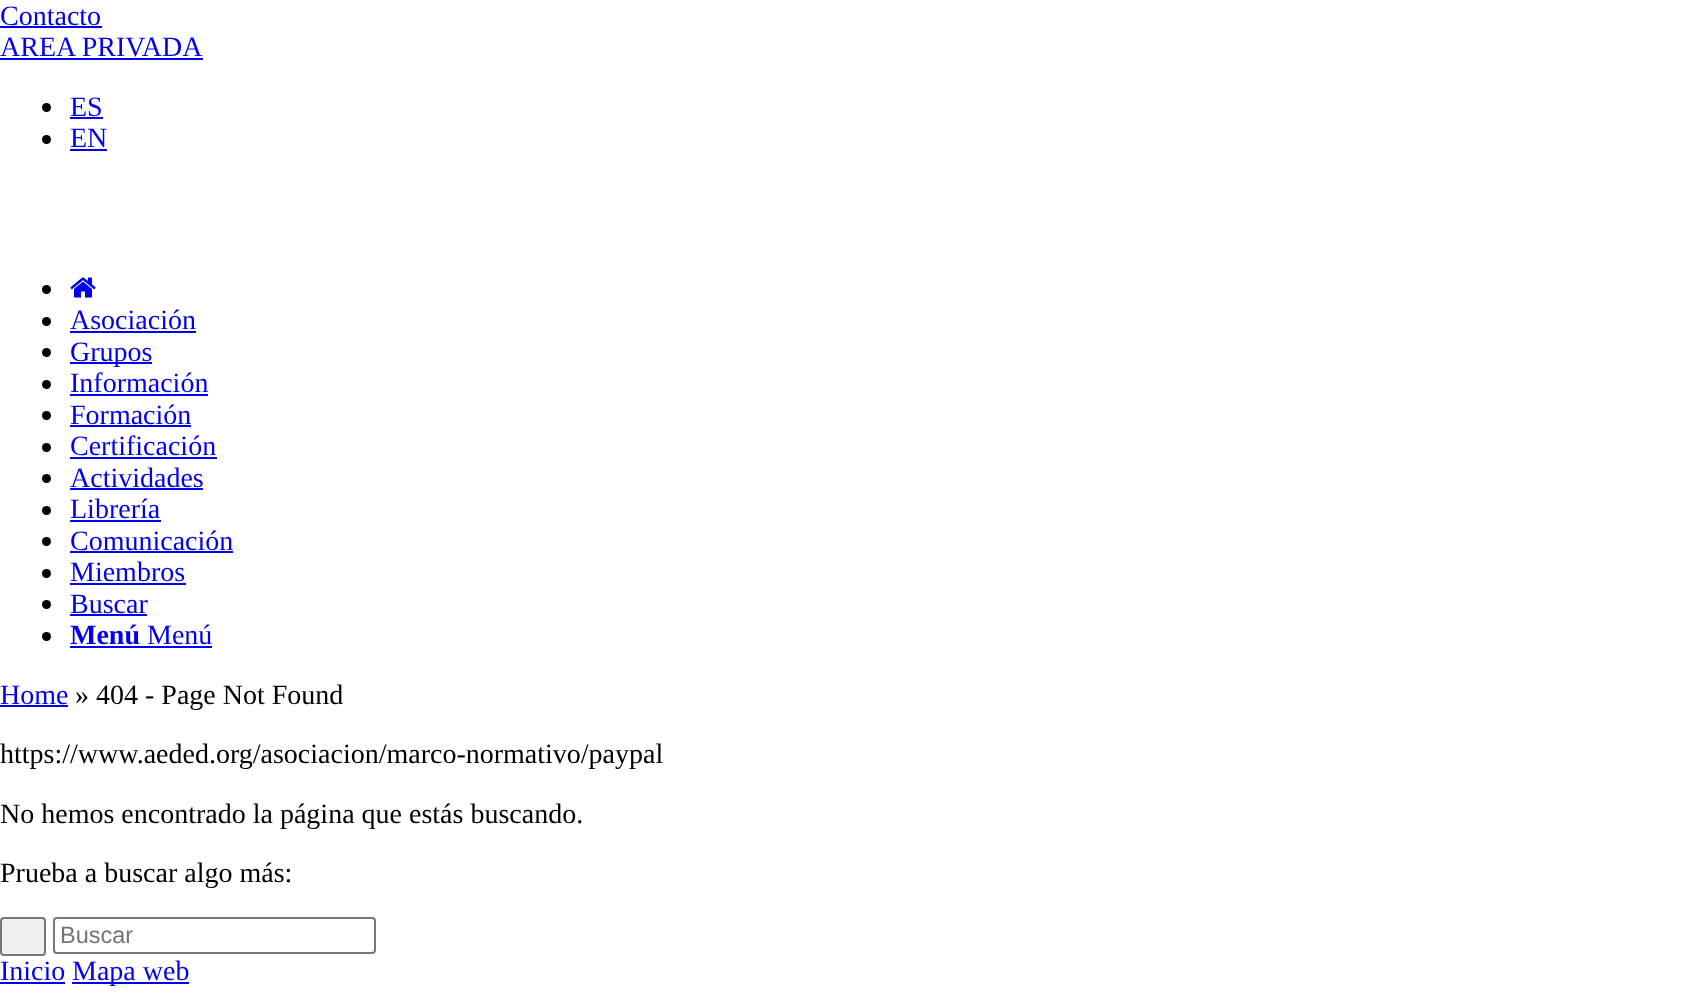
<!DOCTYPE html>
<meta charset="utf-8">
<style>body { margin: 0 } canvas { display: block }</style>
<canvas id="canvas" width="1694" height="994"></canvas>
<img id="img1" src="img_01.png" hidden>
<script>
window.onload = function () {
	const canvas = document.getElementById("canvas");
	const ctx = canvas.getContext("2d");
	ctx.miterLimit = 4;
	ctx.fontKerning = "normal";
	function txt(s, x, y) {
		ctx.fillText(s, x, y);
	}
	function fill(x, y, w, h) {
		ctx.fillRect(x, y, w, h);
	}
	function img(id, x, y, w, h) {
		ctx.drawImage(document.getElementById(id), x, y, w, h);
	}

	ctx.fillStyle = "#FFFFFF";
	fill(0, 0, 1694, 994);
	ctx.fillStyle = "#0000EE";
	fill(0, 26, 102, 2);
	fill(0, 58, 203, 2);
	ctx.fillStyle = "#000000";
	ctx.beginPath();
	ctx.arc(46.5, 107.5, 4.5, 0, Math.PI * 2);
	ctx.fill();
	ctx.fillStyle = "#0000EE";
	fill(70, 117, 33, 2);
	ctx.fillStyle = "#000000";
	ctx.beginPath();
	ctx.arc(46.5, 139.5, 4.5, 0, Math.PI * 2);
	ctx.fill();
	ctx.fillStyle = "#0000EE";
	fill(70, 149, 37, 2);
	ctx.fillStyle = "#000000";
	ctx.beginPath();
	ctx.arc(46.5, 289.5, 4.5, 0, Math.PI * 2);
	ctx.fill();
	img("img1", 70, 277, 26, 21);
	ctx.beginPath();
	ctx.arc(46.5, 321.5, 4.5, 0, Math.PI * 2);
	ctx.fill();
	ctx.fillStyle = "#0000EE";
	fill(70, 331, 126, 2);
	ctx.fillStyle = "#000000";
	ctx.beginPath();
	ctx.arc(46.5, 352.5, 4.5, 0, Math.PI * 2);
	ctx.fill();
	ctx.fillStyle = "#0000EE";
	fill(70, 362, 82, 2);
	ctx.fillStyle = "#000000";
	ctx.beginPath();
	ctx.arc(46.5, 384.5, 4.5, 0, Math.PI * 2);
	ctx.fill();
	ctx.fillStyle = "#0000EE";
	fill(70, 394, 138, 2);
	ctx.fillStyle = "#000000";
	ctx.beginPath();
	ctx.arc(46.5, 415.5, 4.5, 0, Math.PI * 2);
	ctx.fill();
	ctx.fillStyle = "#0000EE";
	fill(70, 425, 121, 2);
	ctx.fillStyle = "#000000";
	ctx.beginPath();
	ctx.arc(46.5, 447.5, 4.5, 0, Math.PI * 2);
	ctx.fill();
	ctx.fillStyle = "#0000EE";
	fill(70, 457, 147, 2);
	ctx.fillStyle = "#000000";
	ctx.beginPath();
	ctx.arc(46.5, 478.5, 4.5, 0, Math.PI * 2);
	ctx.fill();
	ctx.fillStyle = "#0000EE";
	fill(70, 488, 133, 2);
	ctx.fillStyle = "#000000";
	ctx.beginPath();
	ctx.arc(46.5, 510.5, 4.5, 0, Math.PI * 2);
	ctx.fill();
	ctx.fillStyle = "#0000EE";
	fill(70, 520, 91, 2);
	ctx.fillStyle = "#000000";
	ctx.beginPath();
	ctx.arc(46.5, 541.5, 4.5, 0, Math.PI * 2);
	ctx.fill();
	ctx.fillStyle = "#0000EE";
	fill(70, 551, 163, 2);
	ctx.fillStyle = "#000000";
	ctx.beginPath();
	ctx.arc(46.5, 573.5, 4.5, 0, Math.PI * 2);
	ctx.fill();
	ctx.fillStyle = "#0000EE";
	fill(70, 583, 116, 2);
	ctx.fillStyle = "#000000";
	ctx.beginPath();
	ctx.arc(46.5, 604.5, 4.5, 0, Math.PI * 2);
	ctx.fill();
	ctx.fillStyle = "#0000EE";
	fill(70, 614, 77, 2);
	ctx.fillStyle = "#000000";
	ctx.beginPath();
	ctx.arc(46.5, 636.5, 4.5, 0, Math.PI * 2);
	ctx.fill();
	ctx.fillStyle = "#0000EE";
	fill(70, 646, 142, 2);
	fill(0, 705, 68, 2);
	ctx.fillStyle = "#EFEFEF";
	ctx.beginPath();
	ctx.roundRect(1, 918, 44, 37, 3);
	ctx.fill();
	ctx.strokeStyle = "#767676";
	ctx.lineWidth = 2;
	ctx.stroke();
	ctx.beginPath();
	ctx.roundRect(54, 918, 321, 35, 3);
	ctx.stroke();
	ctx.fillStyle = "#0000EE";
	fill(0, 982, 65, 2);
	fill(72, 982, 117, 2);
	ctx.font = "28px Liberation Serif";
	txt("Contacto", 0, 25);
	txt("AREA PRIVADA", 0, 56);
	txt("ES", 70, 116);
	txt("EN", 70, 147);
	txt("Asociación", 70, 329);
	txt("Grupos", 70, 361);
	txt("Información", 70, 392);
	txt("Formación", 70, 424);
	txt("Certificación", 70, 455);
	txt("Actividades", 70, 487);
	txt("Librería", 70, 518);
	txt("Comunicación", 70, 550);
	txt("Miembros", 70, 581);
	txt("Buscar", 70, 613);
	ctx.font = "bold 28px Liberation Serif";
	txt("Menú", 70, 644);
	ctx.font = "28px Liberation Serif";
	txt("Menú", 147, 644);
	txt("Home", 0, 704);
	ctx.fillStyle = "#000000";
	txt("» 404 - Page Not Found", 75, 704);
	txt("https://www.aeded.org/asociacion/marco-normativo/paypal", 0, 763);
	txt("No hemos encontrado la página que estás buscando.", 0, 823);
	txt("Prueba a buscar algo más:", 0, 882);
	ctx.font = "23.5px Liberation Sans";
	ctx.fillStyle = "#757575";
	txt("Buscar", 60, 943);
	ctx.font = "28px Liberation Serif";
	ctx.fillStyle = "#0000EE";
	txt("Inicio", 0, 980);
	txt("Mapa web", 72, 980);
};
</script>
